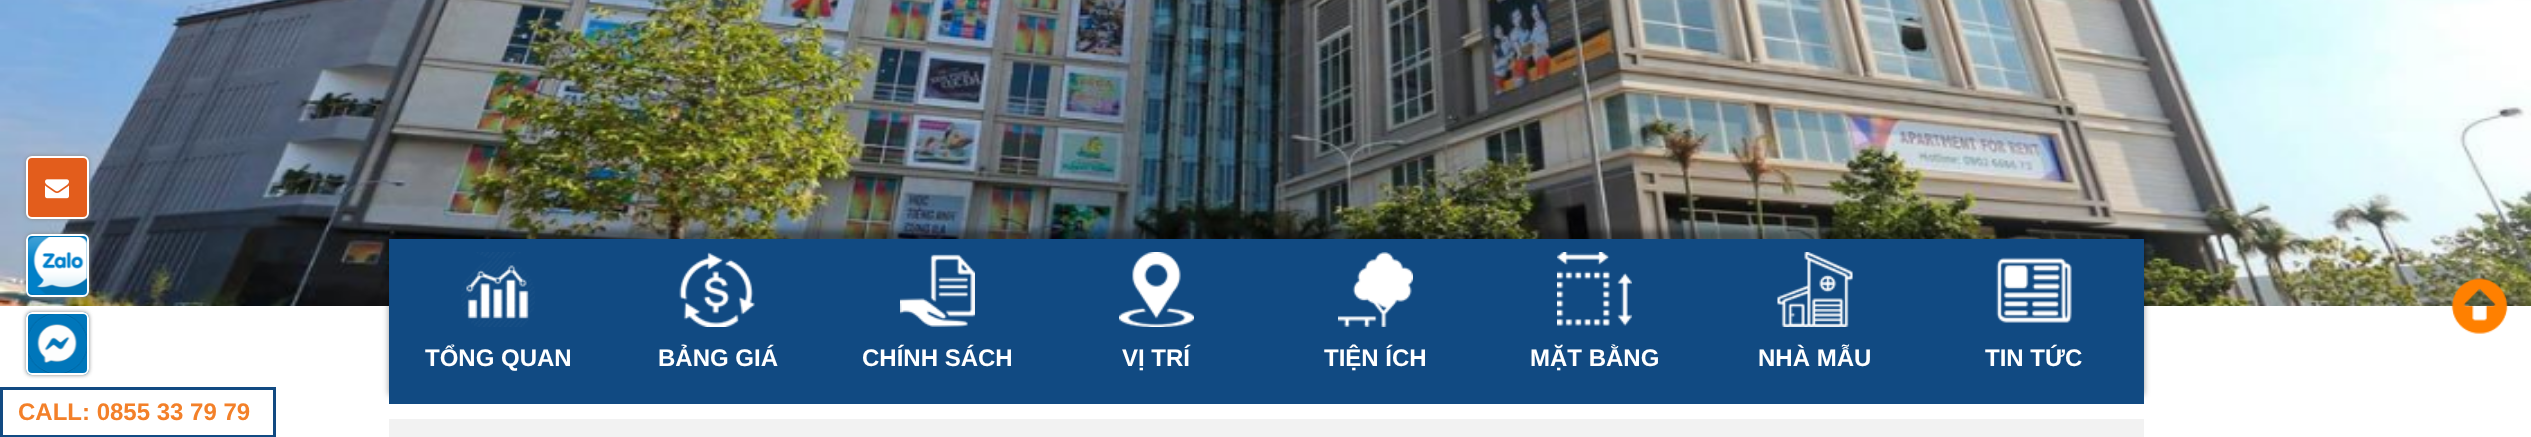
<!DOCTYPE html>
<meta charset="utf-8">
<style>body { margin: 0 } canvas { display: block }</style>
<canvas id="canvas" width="2531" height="437"></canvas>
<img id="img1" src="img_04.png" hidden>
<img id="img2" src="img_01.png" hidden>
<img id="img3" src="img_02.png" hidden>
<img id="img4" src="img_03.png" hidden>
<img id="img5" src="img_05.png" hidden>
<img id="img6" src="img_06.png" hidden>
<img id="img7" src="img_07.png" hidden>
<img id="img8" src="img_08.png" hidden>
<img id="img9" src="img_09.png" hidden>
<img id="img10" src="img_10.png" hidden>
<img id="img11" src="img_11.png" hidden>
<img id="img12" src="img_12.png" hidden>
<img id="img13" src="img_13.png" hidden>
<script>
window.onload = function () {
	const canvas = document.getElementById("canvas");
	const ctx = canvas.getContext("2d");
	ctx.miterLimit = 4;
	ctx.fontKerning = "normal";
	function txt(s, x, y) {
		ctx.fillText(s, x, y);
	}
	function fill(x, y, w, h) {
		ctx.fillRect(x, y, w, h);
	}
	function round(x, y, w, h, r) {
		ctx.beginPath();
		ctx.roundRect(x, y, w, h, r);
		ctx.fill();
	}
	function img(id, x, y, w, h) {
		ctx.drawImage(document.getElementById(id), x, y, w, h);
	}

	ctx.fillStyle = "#FFFFFF";
	fill(0, 0, 2531, 437);
	img("img1", 0, 0, 2531, 306);
	ctx.fillStyle = "#888888";
	ctx.filter = "blur(2px)";
	ctx.beginPath();
	ctx.roundRect(26, 156, 63, 63, 6);
	ctx.fill();
	ctx.filter = "none";
	ctx.fillStyle = "#E35D1C";
	ctx.beginPath();
	ctx.roundRect(27, 157, 61, 61, 5);
	ctx.fill();
	ctx.strokeStyle = "#FFFFFF";
	ctx.lineWidth = 2;
	ctx.stroke();
	img("img2", 45, 179, 24, 20);
	ctx.fillStyle = "#888888";
	ctx.filter = "blur(2px)";
	ctx.beginPath();
	ctx.roundRect(26, 234, 63, 63, 6);
	ctx.fill();
	ctx.filter = "none";
	ctx.fillStyle = "#0076BA";
	round(26, 234, 63, 63, 6);
	img("img3", 28, 237, 59, 57);
	ctx.beginPath();
	ctx.roundRect(27, 235, 61, 61, 5);
	ctx.stroke();
	ctx.fillStyle = "#888888";
	ctx.filter = "blur(2px)";
	ctx.beginPath();
	ctx.roundRect(26, 312, 63, 63, 6);
	ctx.fill();
	ctx.filter = "none";
	ctx.fillStyle = "#0076BA";
	round(26, 312, 63, 63, 6);
	img("img4", 28, 314, 59, 59);
	ctx.beginPath();
	ctx.roundRect(27, 313, 61, 61, 5);
	ctx.stroke();
	ctx.fillStyle = "rgba(0, 0, 0, 0.4)";
	ctx.filter = "blur(3px)";
	ctx.beginPath();
	ctx.rect(389, 230, 1755, 165);
	ctx.fill();
	ctx.filter = "none";
	ctx.fillStyle = "#114A82";
	fill(389, 239, 1755, 165);
	img("img5", 461, 252, 74, 75);
	img("img6", 679, 252, 76, 75);
	img("img7", 900, 254, 75, 73);
	img("img8", 1119, 252, 75, 75);
	img("img9", 1338, 252, 75, 75);
	img("img10", 1557, 252, 75, 74);
	img("img11", 1777, 252, 76, 75);
	img("img12", 1996, 257, 76, 66);
	img("img13", 2451, 278, 57, 56);
	ctx.strokeStyle = "#114A82";
	ctx.lineWidth = 3;
	ctx.strokeRect(1.5, 388.5, 273, 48);
	ctx.fillStyle = "#F2F2F2";
	fill(389, 419, 1755, 18);
	ctx.font = "bold 24px Liberation Sans";
	ctx.fillStyle = "#FFFFFF";
	txt("TỔNG QUAN", 425, 366);
	txt("BẢNG GIÁ", 658, 366);
	txt("CHÍNH SÁCH", 862, 366);
	txt("VỊ TRÍ", 1122, 366);
	txt("TIỆN ÍCH", 1324, 366);
	txt("MẶT BẰNG", 1530, 366);
	txt("NHÀ MẪU", 1758, 366);
	txt("TIN TỨC", 1985, 366);
	ctx.fillStyle = "#F38029";
	txt("CALL: 0855 33 79 79", 18, 420);
};
</script>
